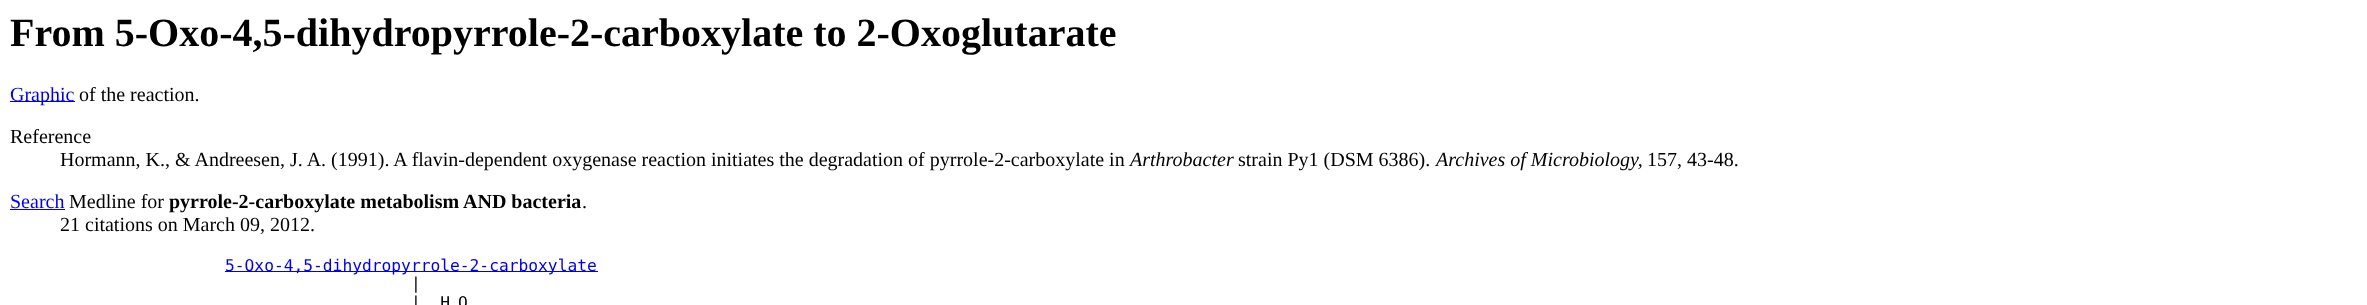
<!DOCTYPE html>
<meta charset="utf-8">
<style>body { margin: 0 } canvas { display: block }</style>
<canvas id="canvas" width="2367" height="305"></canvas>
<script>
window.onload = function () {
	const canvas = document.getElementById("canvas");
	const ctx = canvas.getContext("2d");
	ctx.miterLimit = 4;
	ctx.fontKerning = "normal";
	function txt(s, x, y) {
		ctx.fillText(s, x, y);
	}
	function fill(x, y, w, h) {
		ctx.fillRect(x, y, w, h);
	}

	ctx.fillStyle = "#FFFFFF";
	fill(0, 0, 2367, 305);
	ctx.fillStyle = "#0000EE";
	fill(10, 101, 65, 1);
	fill(10, 209, 55, 1);
	fill(225, 271, 373, 1);
	ctx.font = "bold 40px Liberation Serif";
	ctx.fillStyle = "#000000";
	txt("From 5-Oxo-4,5-dihydropyrrole-2-carboxylate to 2-Oxoglutarate", 10, 46);
	ctx.font = "20px Liberation Serif";
	ctx.fillStyle = "#0000EE";
	txt("Graphic", 10, 101);
	ctx.fillStyle = "#000000";
	txt("of the reaction.", 79, 101);
	txt("Reference", 10, 143);
	txt("Hormann, K., & Andreesen, J. A. (1991). A flavin-dependent oxygenase reaction initiates the degradation of pyrrole-2-carboxylate in", 60, 166);
	ctx.font = "italic 20px Liberation Serif";
	txt("Arthrobacter", 1130, 166);
	ctx.font = "20px Liberation Serif";
	txt("strain Py1 (DSM 6386).", 1238, 166);
	ctx.font = "italic 20px Liberation Serif";
	txt("Archives of Microbiology,", 1436, 166);
	ctx.font = "20px Liberation Serif";
	txt("157, 43-48.", 1647, 166);
	ctx.fillStyle = "#0000EE";
	txt("Search", 10, 208);
	ctx.fillStyle = "#000000";
	txt("Medline for", 69, 208);
	ctx.font = "bold 20px Liberation Serif";
	txt("pyrrole-2-carboxylate metabolism AND bacteria", 169, 208);
	ctx.font = "20px Liberation Serif";
	txt(".", 582, 208);
	txt("21 citations on March 09, 2012.", 60, 231);
	ctx.font = "16.25px DejaVu Sans Mono";
	ctx.fillStyle = "#0000EE";
	txt("5-Oxo-4,5-dihydropyrrole-2-carboxylate", 225, 271);
	ctx.fillStyle = "#000000";
	txt("|", 411, 289);
	txt("|  H", 411, 308);
	txt("O", 458, 308);
};
</script>
